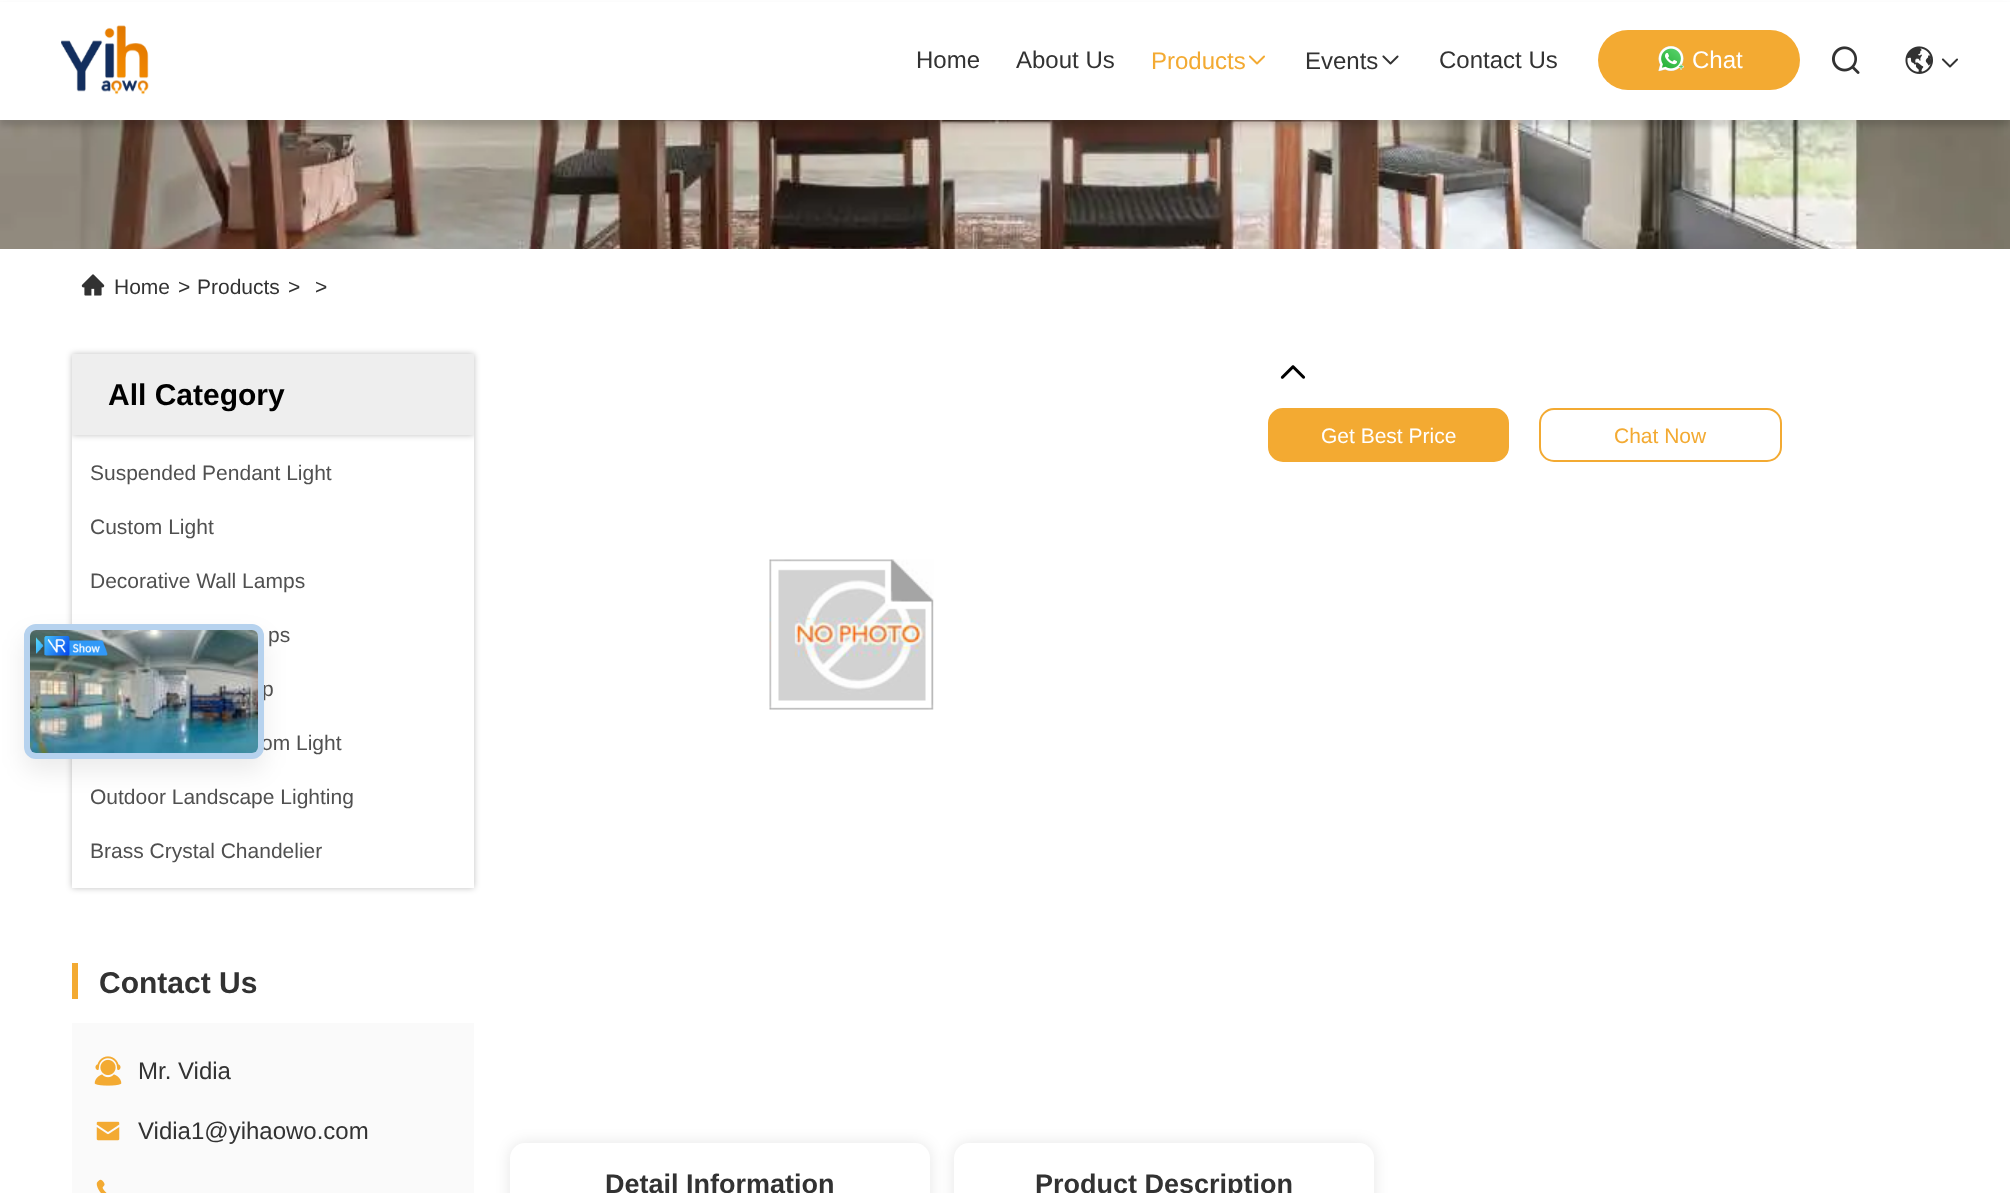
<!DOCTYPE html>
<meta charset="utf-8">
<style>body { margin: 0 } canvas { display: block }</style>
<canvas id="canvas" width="2010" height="1193"></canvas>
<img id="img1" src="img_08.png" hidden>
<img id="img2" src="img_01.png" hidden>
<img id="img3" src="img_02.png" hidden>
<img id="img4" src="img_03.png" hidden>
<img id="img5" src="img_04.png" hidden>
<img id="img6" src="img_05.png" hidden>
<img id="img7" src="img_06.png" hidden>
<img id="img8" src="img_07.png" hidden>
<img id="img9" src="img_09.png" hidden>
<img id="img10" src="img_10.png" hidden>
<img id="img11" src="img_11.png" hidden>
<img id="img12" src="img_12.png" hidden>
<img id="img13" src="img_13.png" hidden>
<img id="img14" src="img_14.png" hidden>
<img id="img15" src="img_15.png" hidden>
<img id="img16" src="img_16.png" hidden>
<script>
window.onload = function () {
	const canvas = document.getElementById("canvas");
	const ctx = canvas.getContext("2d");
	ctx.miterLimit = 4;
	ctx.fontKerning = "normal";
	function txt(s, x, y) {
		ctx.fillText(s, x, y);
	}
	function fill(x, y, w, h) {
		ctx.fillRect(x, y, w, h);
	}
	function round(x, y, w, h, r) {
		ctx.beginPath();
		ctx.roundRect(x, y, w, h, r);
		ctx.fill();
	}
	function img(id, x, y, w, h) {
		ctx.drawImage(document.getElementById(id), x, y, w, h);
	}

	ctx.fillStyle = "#FFFFFF";
	fill(0, 0, 2010, 1193);
	img("img1", 0, 120, 2010, 129);
	ctx.fillStyle = "rgba(0, 0, 0, 0.15)";
	ctx.filter = "blur(3px)";
	ctx.beginPath();
	ctx.rect(0, 6, 2010, 120);
	ctx.fill();
	ctx.filter = "none";
	ctx.fillStyle = "#FFFFFF";
	fill(0, 2, 2010, 118);
	img("img2", 61, 25, 88, 70);
	img("img3", 1248, 55, 17, 10);
	img("img4", 1382, 55, 17, 10);
	ctx.fillStyle = "#F3AA32";
	round(1598, 30, 202, 60, 30);
	img("img5", 1658, 46, 26, 26);
	img("img6", 1831, 46, 29, 28);
	img("img7", 1905, 46, 28, 28);
	img("img8", 1941, 58, 17, 10);
	img("img9", 81, 274, 24, 22);
	ctx.fillStyle = "rgba(0, 0, 0, 0.25)";
	ctx.filter = "blur(3px)";
	ctx.beginPath();
	ctx.rect(72, 354, 402, 81);
	ctx.fill();
	ctx.filter = "none";
	ctx.save();
	ctx.beginPath();
	ctx.moveTo(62, 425);
	ctx.lineTo(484, 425);
	ctx.lineTo(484, 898);
	ctx.lineTo(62, 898);
	ctx.closePath();
	ctx.moveTo(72, 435);
	ctx.lineTo(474, 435);
	ctx.lineTo(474, 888);
	ctx.lineTo(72, 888);
	ctx.closePath();
	ctx.clip("evenodd");
	ctx.filter = "blur(3px)";
	ctx.beginPath();
	ctx.rect(72, 435, 402, 453);
	ctx.fill();
	ctx.filter = "none";
	ctx.restore();
	ctx.fillStyle = "#EEEEEE";
	fill(72, 354, 402, 81);
	ctx.fillStyle = "#F3AA32";
	fill(72, 963, 6, 36);
	ctx.fillStyle = "#FAFAFA";
	fill(72, 1023, 402, 170);
	img("img10", 94, 1056, 28, 30);
	img("img11", 96, 1121, 24, 20);
	img("img12", 96, 1179, 11, 14);
	img("img13", 1280, 365, 26, 14);
	img("img14", 769, 559, 165, 151);
	ctx.fillStyle = "#F3AA32";
	ctx.beginPath();
	ctx.roundRect(1269, 409, 239, 52, 14);
	ctx.fill();
	ctx.strokeStyle = "#F3AA32";
	ctx.lineWidth = 2;
	ctx.stroke();
	ctx.beginPath();
	ctx.roundRect(1540, 409, 241, 52, 14);
	ctx.stroke();
	ctx.fillStyle = "rgba(0, 0, 0, 0.1)";
	ctx.filter = "blur(7.5px)";
	ctx.beginPath();
	ctx.roundRect(510, 1143, 420, 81, 15);
	ctx.fill();
	ctx.filter = "none";
	ctx.fillStyle = "#FFFFFF";
	round(510, 1143, 420, 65, 15);
	ctx.fillStyle = "rgba(0, 0, 0, 0.1)";
	ctx.filter = "blur(7.5px)";
	ctx.beginPath();
	ctx.roundRect(954, 1143, 420, 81, 15);
	ctx.fill();
	ctx.filter = "none";
	ctx.fillStyle = "#FFFFFF";
	round(954, 1143, 420, 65, 15);
	ctx.fillStyle = "rgba(0, 0, 0, 0.08)";
	ctx.filter = "blur(12px)";
	ctx.beginPath();
	ctx.roundRect(24, 636, 240, 135, 12);
	ctx.fill();
	ctx.filter = "none";
	ctx.font = "24px Liberation Sans";
	ctx.fillStyle = "#323232";
	txt("Home", 916, 68);
	txt("About Us", 1016, 68);
	ctx.fillStyle = "#F3AA32";
	txt("Products", 1151, 69);
	ctx.fillStyle = "#323232";
	txt("Events", 1305, 69);
	txt("Contact Us", 1439, 68);
	ctx.fillStyle = "#FFFFFF";
	txt("Chat", 1692, 68);
	ctx.font = "21px Liberation Sans";
	ctx.fillStyle = "#323232";
	txt("Home", 114, 294);
	txt(">", 178, 294);
	txt("Products", 197, 294);
	txt(">", 288, 294);
	txt(">", 315, 294);
	ctx.font = "bold 30px Liberation Sans";
	ctx.fillStyle = "#000000";
	txt("All Category", 108, 405);
	ctx.font = "21px Liberation Sans";
	ctx.fillStyle = "#505050";
	txt("Suspended Pendant Light", 90, 480);
	txt("Custom Light", 90, 534);
	txt("Decorative Wall Lamps", 90, 588);
	txt("ps", 268, 642);
	txt("p", 262, 696);
	txt("om Light", 261, 750);
	txt("Outdoor Landscape Lighting", 90, 804);
	txt("Brass Crystal Chandelier", 90, 858);
	ctx.font = "bold 30px Liberation Sans";
	ctx.fillStyle = "#323232";
	txt("Contact Us", 99, 993);
	ctx.font = "24px Liberation Sans";
	txt("Mr. Vidia", 138, 1079);
	txt("Vidia1@yihaowo.com", 138, 1139);
	ctx.font = "21px Liberation Sans";
	ctx.fillStyle = "#FFFFFF";
	txt("Get Best Price", 1321, 443);
	ctx.fillStyle = "#F3AA32";
	txt("Chat Now", 1614, 443);
	ctx.font = "bold 27px Liberation Sans";
	ctx.fillStyle = "#323232";
	txt("Detail Information", 605, 1193);
	txt("Product Description", 1035, 1193);
	ctx.fillStyle = "#EEEEEE";
	round(24, 624, 240, 135, 12);
	ctx.beginPath();
	ctx.roundRect(27, 627, 234, 129, 9);
	ctx.strokeStyle = "rgba(4, 120, 237, 0.24)";
	ctx.lineWidth = 6;
	ctx.stroke();
	img("img15", 30, 630, 228, 123);
	img("img16", 36, 636, 72, 20);
};
</script>
